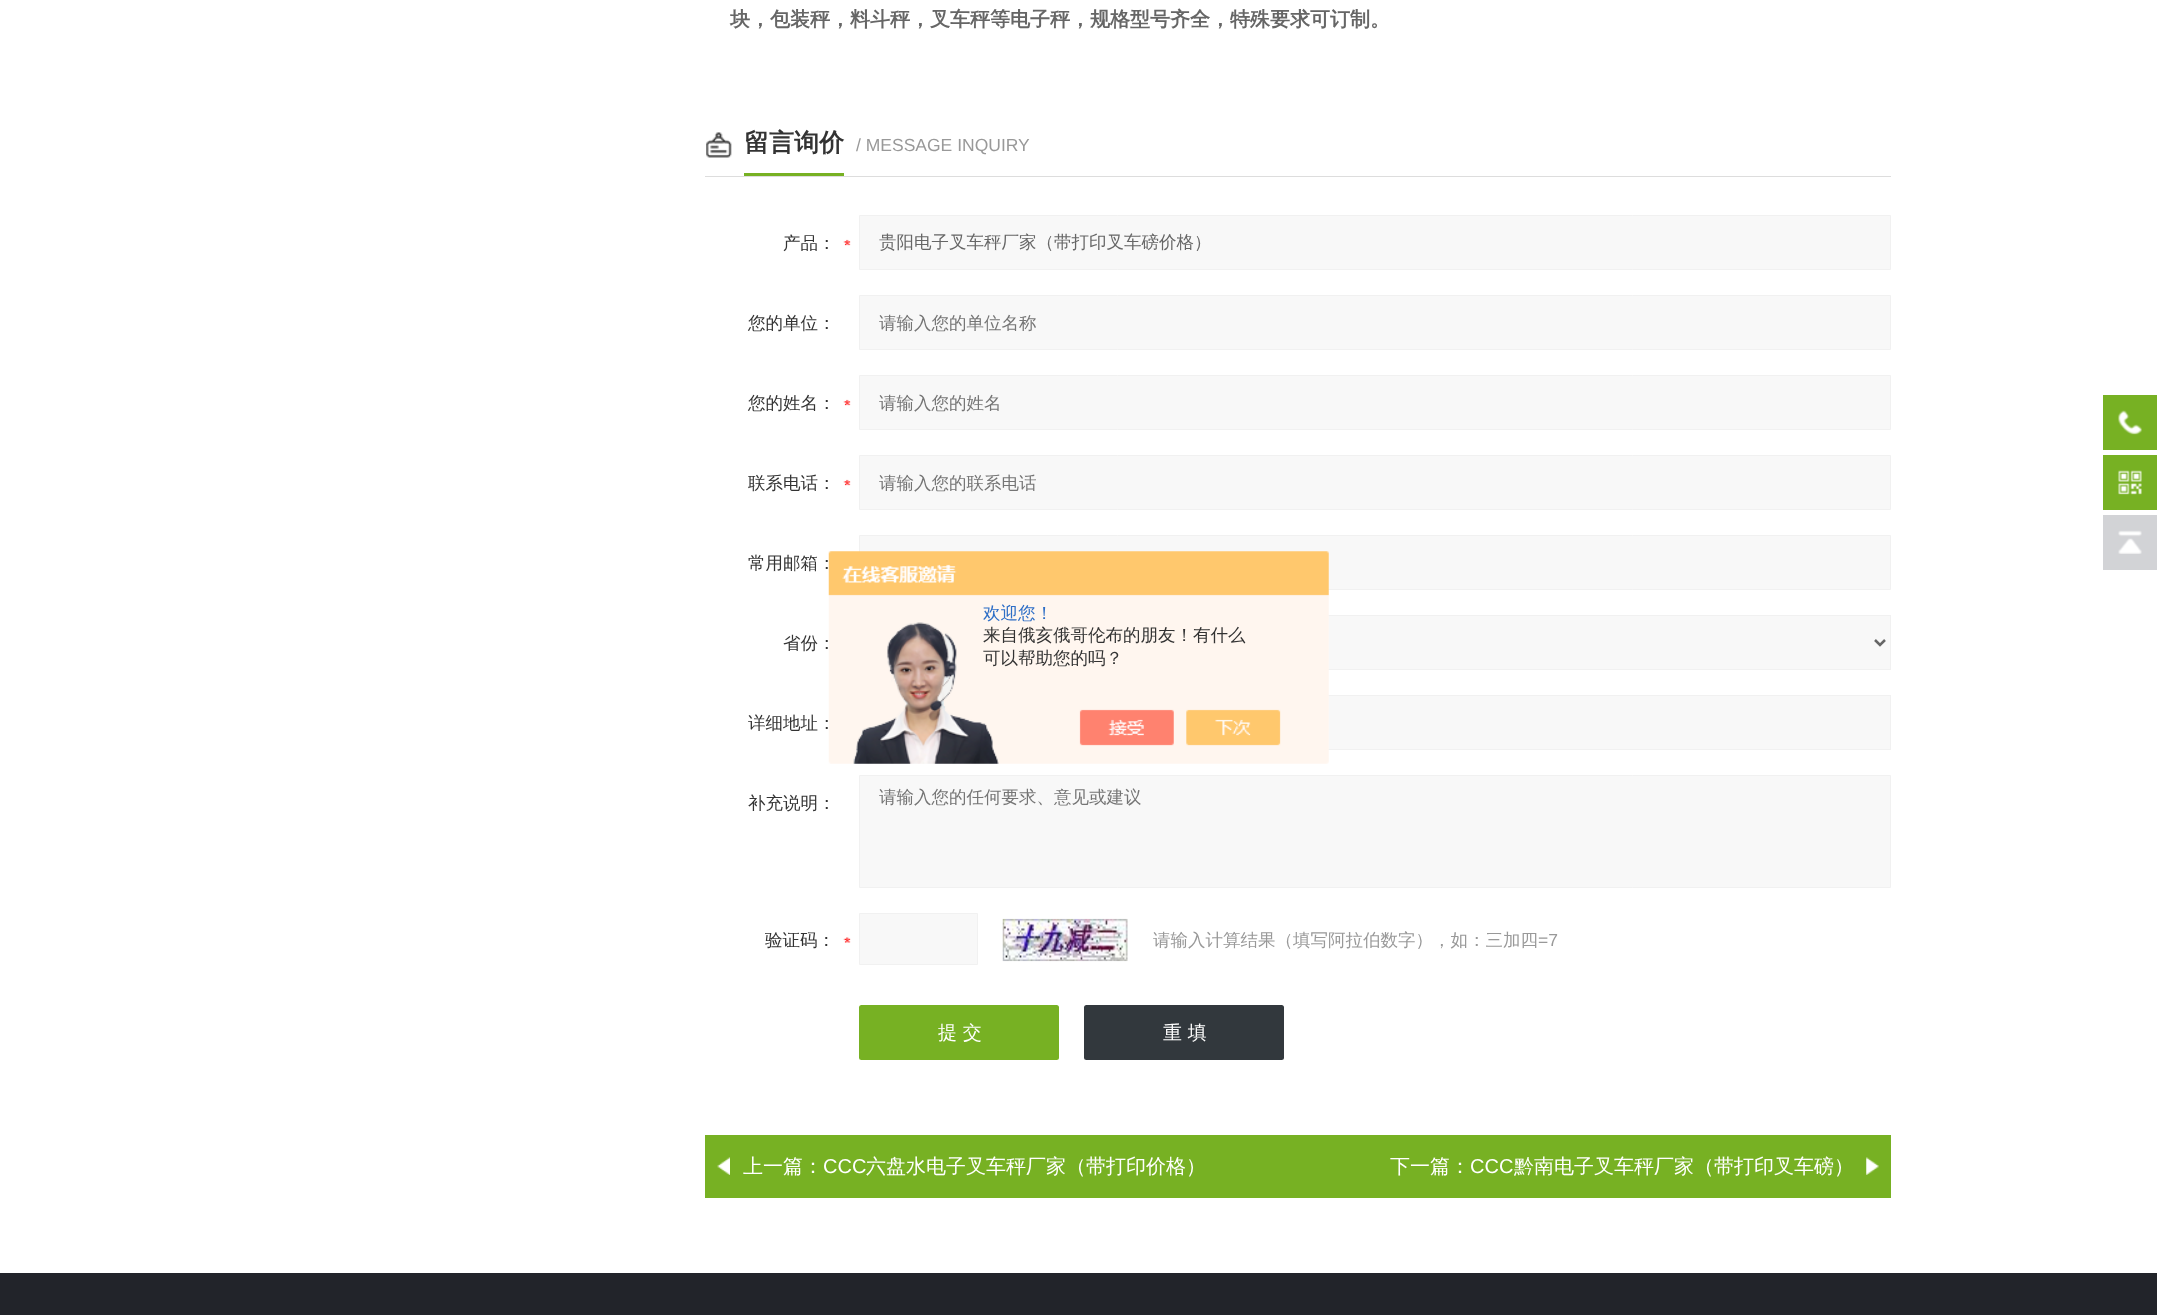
<!DOCTYPE html>
<meta charset="utf-8">
<style>body { margin: 0 } canvas { display: block }</style>
<canvas id="canvas" width="2157" height="1315"></canvas>
<img id="img1" src="img_01.png" hidden>
<img id="img2" src="img_02.png" hidden>
<img id="img3" src="img_03.png" hidden>
<img id="img4" src="img_04.png" hidden>
<img id="img5" src="img_05.png" hidden>
<img id="img6" src="img_06.png" hidden>
<img id="img7" src="img_07.png" hidden>
<img id="img8" src="img_08.png" hidden>
<img id="img9" src="img_09.png" hidden>
<img id="img10" src="img_10.png" hidden>
<img id="img11" src="img_11.png" hidden>
<script>
window.onload = function () {
	const canvas = document.getElementById("canvas");
	const ctx = canvas.getContext("2d");
	ctx.miterLimit = 4;
	ctx.fontKerning = "normal";
	function txt(s, x, y) {
		ctx.fillText(s, x, y);
	}
	function fill(x, y, w, h) {
		ctx.fillRect(x, y, w, h);
	}
	function round(x, y, w, h, r) {
		ctx.beginPath();
		ctx.roundRect(x, y, w, h, r);
		ctx.fill();
	}
	function img(id, x, y, w, h) {
		ctx.drawImage(document.getElementById(id), x, y, w, h);
	}

	ctx.fillStyle = "#FFFFFF";
	fill(0, 0, 2157, 1315);
	ctx.fillStyle = "#DDDDDD";
	fill(705, 176, 1186, 1);
	img("img1", 706, 132, 26, 26);
	ctx.fillStyle = "#77B123";
	fill(744, 173, 100, 3);
	img("img2", 843, 239, 8, 7);
	ctx.fillStyle = "#F8F8F8";
	ctx.beginPath();
	ctx.rect(859.5, 215.5, 1031, 54);
	ctx.fill();
	ctx.strokeStyle = "#F1F1F1";
	ctx.stroke();
	ctx.beginPath();
	ctx.rect(859.5, 295.5, 1031, 54);
	ctx.fill();
	ctx.stroke();
	img("img3", 843, 399, 8, 7);
	ctx.beginPath();
	ctx.rect(859.5, 375.5, 1031, 54);
	ctx.fill();
	ctx.stroke();
	img("img3", 843, 479, 8, 7);
	ctx.beginPath();
	ctx.rect(859.5, 455.5, 1031, 54);
	ctx.fill();
	ctx.stroke();
	ctx.beginPath();
	ctx.rect(859.5, 535.5, 1031, 54);
	ctx.fill();
	ctx.stroke();
	fill(1328, 616, 562, 53);
	ctx.strokeRect(859.5, 615.5, 1031, 54);
	ctx.beginPath();
	ctx.moveTo(1875, 640);
	ctx.lineTo(1880, 645);
	ctx.lineTo(1885, 640);
	ctx.strokeStyle = "#666666";
	ctx.lineWidth = 2.5;
	ctx.stroke();
	fill(1328, 696, 562, 53);
	ctx.strokeStyle = "#F1F1F1";
	ctx.lineWidth = 1;
	ctx.strokeRect(859.5, 695.5, 1031, 54);
	ctx.beginPath();
	ctx.rect(859.5, 775.5, 1031, 112);
	ctx.fill();
	ctx.stroke();
	img("img4", 843, 937, 8, 6);
	ctx.beginPath();
	ctx.rect(859.5, 913.5, 118, 51);
	ctx.fill();
	ctx.stroke();
	img("img5", 1002, 918, 126, 44);
	ctx.fillStyle = "#77B123";
	round(859, 1005, 200, 55, 2.5);
	ctx.fillStyle = "#32383D";
	round(1084, 1005, 200, 55, 2.5);
	ctx.fillStyle = "#77B123";
	fill(705, 1135, 1186, 63);
	img("img6", 717, 1157, 13, 18);
	img("img7", 1866, 1157, 13, 18);
	fill(2103, 395, 54, 55);
	img("img8", 2118, 410, 24, 25);
	fill(2103, 455, 54, 55);
	img("img9", 2118, 470, 24, 25);
	ctx.fillStyle = "#D2D3D6";
	fill(2103, 515, 54, 55);
	img("img10", 2118, 530, 24, 24);
	img("img11", 828, 551, 501, 213);
	ctx.fillStyle = "#22242A";
	fill(0, 1273, 2157, 42);
	ctx.font = "bold 20px WenQuanYi Zen Hei";
	ctx.fillStyle = "#666666";
	txt("块，包装秤，料斗秤，叉车秤等电子秤，规格型号齐全，特殊要求可订制。", 730, 26);
	ctx.font = "bold 25px WenQuanYi Zen Hei";
	ctx.fillStyle = "#333333";
	txt("留言询价", 744, 151);
	ctx.font = "17.5px Liberation Sans";
	ctx.fillStyle = "#999999";
	txt("/ MESSAGE INQUIRY", 856, 151);
	ctx.font = "500 17.5px WenQuanYi Zen Hei";
	ctx.fillStyle = "#333333";
	txt("产品：", 783, 249);
	ctx.fillStyle = "#666666";
	txt("贵阳电子叉车秤厂家（带打印叉车磅价格）", 879, 248);
	ctx.fillStyle = "#333333";
	txt("您的单位：", 748, 329);
	ctx.fillStyle = "#757575";
	txt("请输入您的单位名称", 879, 329);
	ctx.fillStyle = "#333333";
	txt("您的姓名：", 748, 409);
	ctx.fillStyle = "#757575";
	txt("请输入您的姓名", 879, 409);
	ctx.fillStyle = "#333333";
	txt("联系电话：", 748, 489);
	ctx.fillStyle = "#757575";
	txt("请输入您的联系电话", 879, 489);
	ctx.fillStyle = "#333333";
	txt("常用邮箱：", 748, 569);
	txt("省份：", 783, 649);
	txt("详细地址：", 748, 729);
	txt("补充说明：", 748, 809);
	ctx.fillStyle = "#757575";
	txt("请输入您的任何要求、意见或建议", 879, 803);
	ctx.fillStyle = "#333333";
	txt("验证码：", 765, 946);
	ctx.fillStyle = "#999999";
	txt("请输入计算结果（填写阿拉伯数字），如：三加四", 1153, 946);
	ctx.font = "17.5px Liberation Sans";
	txt("=7", 1538, 946);
	ctx.font = "500 19px WenQuanYi Zen Hei";
	ctx.fillStyle = "#FFFFFF";
	txt("提 交", 938, 1039);
	txt("重 填", 1163, 1039);
	ctx.font = "500 20px WenQuanYi Zen Hei";
	txt("上一篇：", 743, 1173);
	ctx.font = "20px Liberation Sans";
	txt("CCC", 823, 1173);
	ctx.font = "500 20px WenQuanYi Zen Hei";
	txt("六盘水电子叉车秤厂家（带打印价格）", 866, 1173);
	txt("下一篇：", 1390, 1173);
	ctx.font = "20px Liberation Sans";
	txt("CCC", 1470, 1173);
	ctx.font = "500 20px WenQuanYi Zen Hei";
	txt("黔南电子叉车秤厂家（带打印叉车磅）", 1514, 1173);
	ctx.font = "500 17.5px WenQuanYi Zen Hei";
	ctx.fillStyle = "#2E6EC6";
	txt("欢迎您！", 983, 619);
	ctx.fillStyle = "#333333";
	txt("来自俄亥俄哥伦布的朋友！有什么", 983, 641);
	txt("可以帮助您的吗？", 983, 664);
};
</script>
